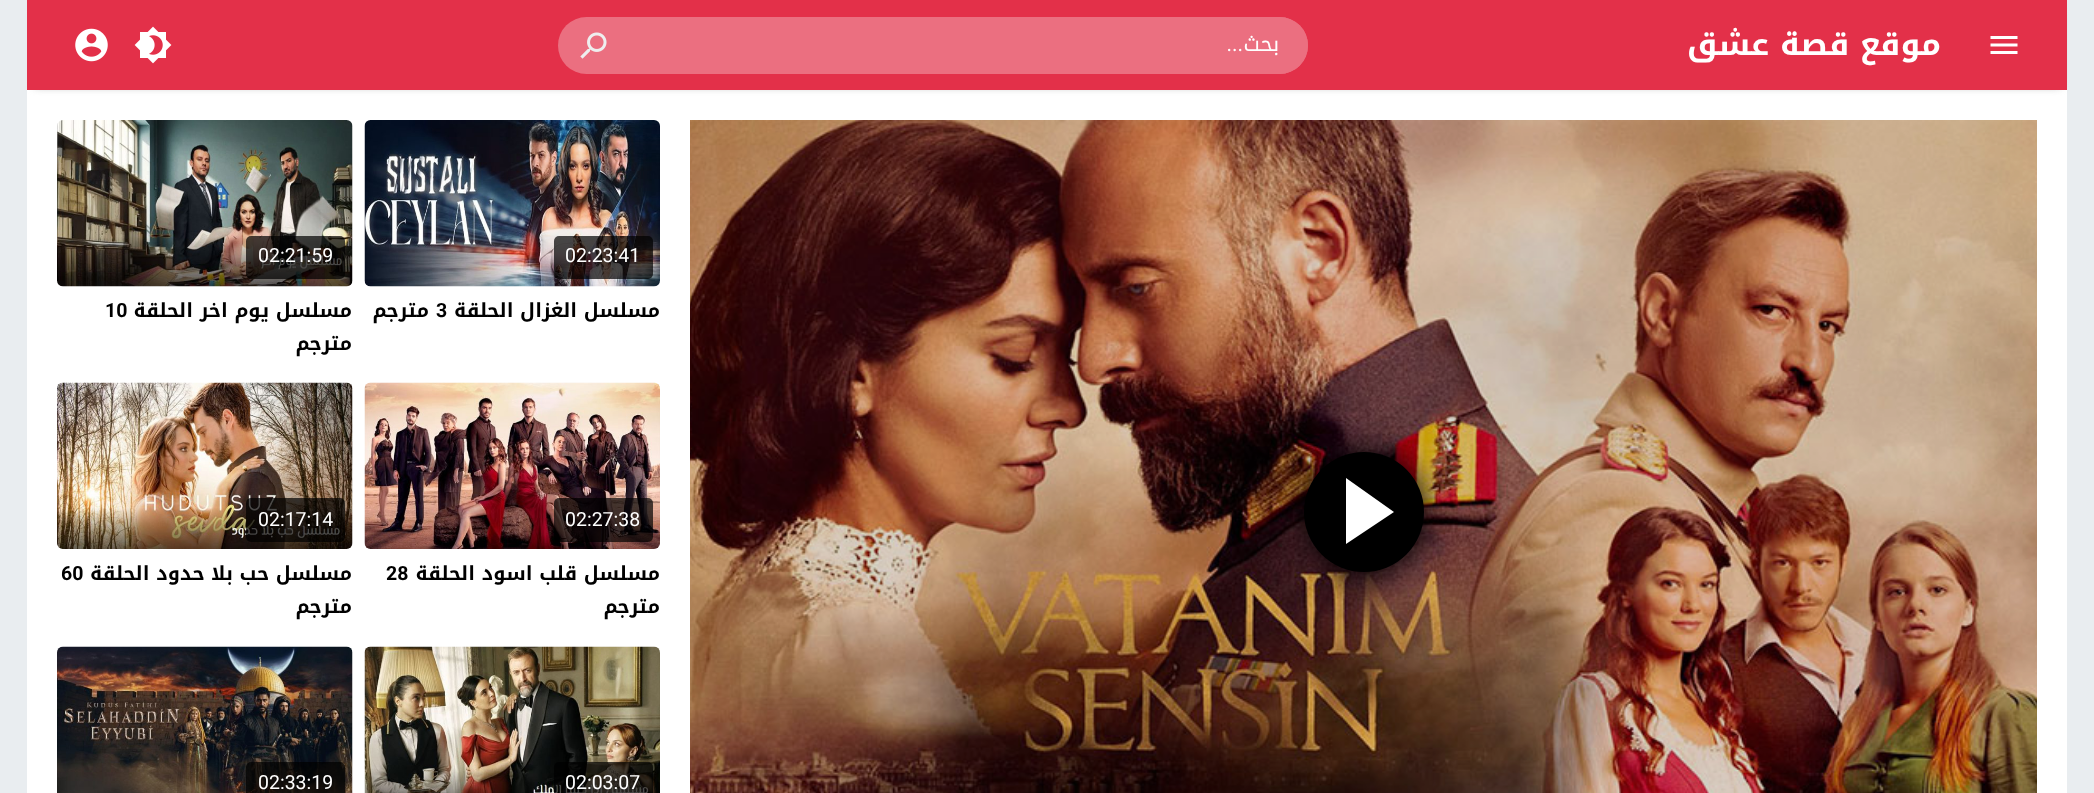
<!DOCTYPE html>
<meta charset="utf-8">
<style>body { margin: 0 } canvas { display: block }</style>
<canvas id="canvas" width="2094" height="793"></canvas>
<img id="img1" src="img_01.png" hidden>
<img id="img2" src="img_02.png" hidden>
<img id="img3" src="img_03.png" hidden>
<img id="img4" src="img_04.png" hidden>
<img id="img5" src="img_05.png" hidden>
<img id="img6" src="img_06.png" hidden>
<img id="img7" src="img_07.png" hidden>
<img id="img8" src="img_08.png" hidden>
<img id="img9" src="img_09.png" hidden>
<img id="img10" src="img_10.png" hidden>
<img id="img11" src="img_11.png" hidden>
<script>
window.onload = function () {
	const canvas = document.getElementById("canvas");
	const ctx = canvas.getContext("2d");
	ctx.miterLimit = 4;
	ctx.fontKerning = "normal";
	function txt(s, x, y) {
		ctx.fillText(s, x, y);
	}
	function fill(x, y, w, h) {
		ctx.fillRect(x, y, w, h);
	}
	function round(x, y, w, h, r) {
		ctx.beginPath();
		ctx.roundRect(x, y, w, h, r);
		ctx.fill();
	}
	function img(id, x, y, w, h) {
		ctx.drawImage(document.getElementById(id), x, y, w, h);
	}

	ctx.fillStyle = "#E9EDF0";
	fill(0, 0, 2094, 793);
	ctx.fillStyle = "#FFFFFF";
	fill(27, 90, 2040, 703);
	ctx.fillStyle = "#999999";
	ctx.filter = "blur(4px)";
	ctx.beginPath();
	ctx.rect(35, 11, 2025, 75);
	ctx.fill();
	ctx.filter = "none";
	ctx.fillStyle = "#E33049";
	fill(27, 0, 2040, 90);
	img("img1", 1990, 36, 28, 18);
	ctx.fillStyle = "#EB6F80";
	round(558, 17, 750, 57, 28.5);
	ctx.beginPath();
	ctx.roundRect(633, 17, 675, 57, [0, 28.5, 28.5, 0]);
	ctx.fill();
	img("img2", 580, 32, 27, 27);
	img("img3", 134, 26, 38, 38);
	img("img4", 75, 28, 33, 34);
	img("img5", 690, 120, 1347, 673);
	ctx.fillStyle = "#000000";
	ctx.filter = "blur(15px)";
	ctx.beginPath();
	ctx.roundRect(1304, 452, 120, 120, 60);
	ctx.fill();
	ctx.filter = "none";
	ctx.beginPath();
	ctx.arc(1364, 512, 60, 0, Math.PI * 2);
	ctx.fill();
	ctx.fillStyle = "#FFFFFF";
	ctx.beginPath();
	ctx.moveTo(1346, 544);
	ctx.lineTo(1346, 478);
	ctx.lineTo(1394, 512);
	ctx.closePath();
	ctx.fill();
	img("img6", 364, 120, 296, 167);
	ctx.fillStyle = "rgba(0, 0, 0, 0.7)";
	round(554, 236, 99, 43, 5);
	img("img7", 57, 120, 296, 167);
	round(246, 236, 99, 43, 5);
	img("img8", 364, 382, 296, 167);
	round(554, 498, 99, 44, 5);
	img("img9", 57, 382, 296, 167);
	round(246, 498, 99, 44, 5);
	img("img10", 364, 646, 296, 147);
	round(554, 762, 99, 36, 5);
	img("img11", 57, 646, 296, 147);
	round(246, 762, 99, 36, 5);
	ctx.direction = "rtl";
	ctx.font = "bold 31.5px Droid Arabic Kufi";
	ctx.fillStyle = "#FFFFFF";
	txt("موقع قصة عشق", 1941, 55);
	ctx.font = "21px Droid Arabic Kufi";
	txt("بحث", 1279, 51);
	ctx.font = "21px Roboto";
	txt("...", 1243, 51);
	ctx.direction = "ltr";
	ctx.font = "19.5px Roboto";
	txt("02:23:41", 565, 262);
	ctx.direction = "rtl";
	ctx.font = "bold 19.5px Droid Arabic Kufi";
	ctx.fillStyle = "#000000";
	txt("مسلسل الغزال الحلقة", 660, 317);
	ctx.direction = "ltr";
	ctx.font = "bold 19.5px Roboto";
	txt("3", 436, 317);
	ctx.direction = "rtl";
	ctx.font = "bold 19.5px Droid Arabic Kufi";
	txt("مترجم", 429, 317);
	ctx.direction = "ltr";
	ctx.font = "19.5px Roboto";
	ctx.fillStyle = "#FFFFFF";
	txt("02:21:59", 258, 262);
	ctx.direction = "rtl";
	ctx.font = "bold 19.5px Droid Arabic Kufi";
	ctx.fillStyle = "#000000";
	txt("مسلسل يوم اخر الحلقة", 352, 317);
	ctx.direction = "ltr";
	ctx.font = "bold 19.5px Roboto";
	txt("10", 105, 317);
	ctx.direction = "rtl";
	ctx.font = "bold 19.5px Droid Arabic Kufi";
	txt("مترجم", 352, 350);
	ctx.direction = "ltr";
	ctx.font = "19.5px Roboto";
	ctx.fillStyle = "#FFFFFF";
	txt("02:27:38", 565, 526);
	ctx.direction = "rtl";
	ctx.font = "bold 19.5px Droid Arabic Kufi";
	ctx.fillStyle = "#000000";
	txt("مسلسل قلب اسود الحلقة", 660, 580);
	ctx.direction = "ltr";
	ctx.font = "bold 19.5px Roboto";
	txt("28", 386, 580);
	ctx.direction = "rtl";
	ctx.font = "bold 19.5px Droid Arabic Kufi";
	txt("مترجم", 660, 613);
	ctx.direction = "ltr";
	ctx.font = "19.5px Roboto";
	ctx.fillStyle = "#FFFFFF";
	txt("02:17:14", 258, 526);
	ctx.direction = "rtl";
	ctx.font = "bold 19.5px Droid Arabic Kufi";
	ctx.fillStyle = "#000000";
	txt("مسلسل حب بلا حدود الحلقة", 352, 580);
	ctx.direction = "ltr";
	ctx.font = "bold 19.5px Roboto";
	txt("60", 61, 580);
	ctx.direction = "rtl";
	ctx.font = "bold 19.5px Droid Arabic Kufi";
	txt("مترجم", 352, 613);
	ctx.direction = "ltr";
	ctx.font = "19.5px Roboto";
	ctx.fillStyle = "#FFFFFF";
	txt("02:03:07", 565, 789);
	txt("02:33:19", 258, 789);
};
</script>
